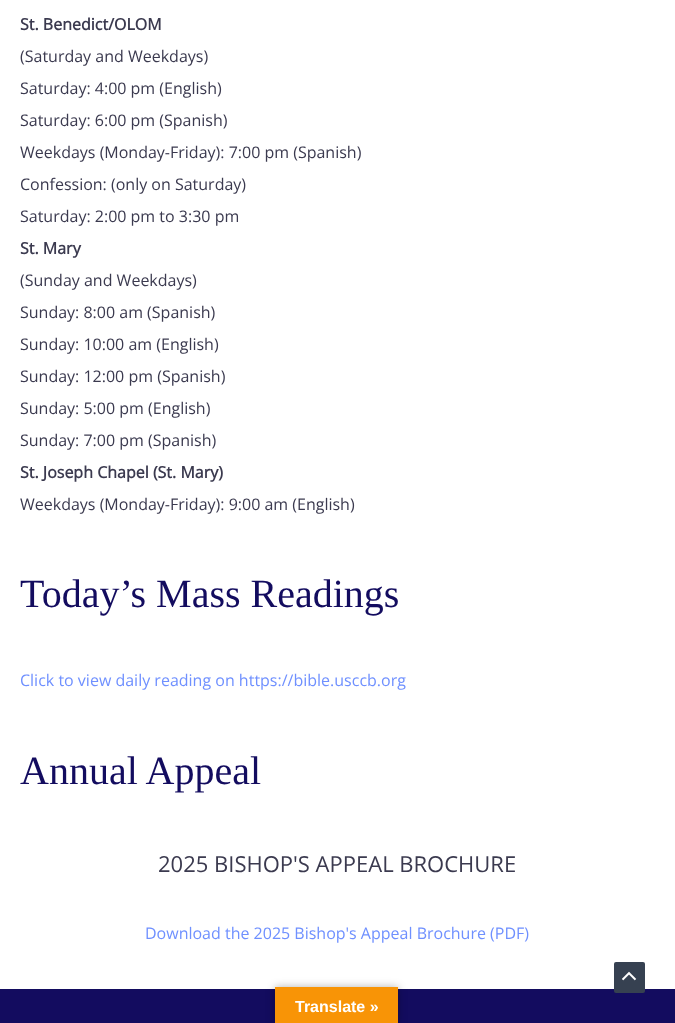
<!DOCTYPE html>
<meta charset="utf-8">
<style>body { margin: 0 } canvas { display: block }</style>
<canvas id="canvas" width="675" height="1023"></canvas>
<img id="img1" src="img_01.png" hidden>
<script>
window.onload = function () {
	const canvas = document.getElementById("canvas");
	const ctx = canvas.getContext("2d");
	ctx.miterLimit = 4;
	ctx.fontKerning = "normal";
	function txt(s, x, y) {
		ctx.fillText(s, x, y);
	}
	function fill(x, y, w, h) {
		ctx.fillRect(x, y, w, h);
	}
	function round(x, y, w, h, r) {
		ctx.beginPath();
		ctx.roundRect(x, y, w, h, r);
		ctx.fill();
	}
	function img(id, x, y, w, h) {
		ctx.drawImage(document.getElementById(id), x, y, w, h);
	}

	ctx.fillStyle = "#FFFFFF";
	fill(0, 0, 675, 1023);
	ctx.fillStyle = "#130C5F";
	fill(0, 989, 675, 34);
	ctx.fillStyle = "#364151";
	round(614, 962, 31, 31, 2);
	img("img1", 622, 971, 15, 10);
	ctx.fillStyle = "rgba(0, 0, 0, 0.3)";
	ctx.filter = "blur(4.5px)";
	ctx.beginPath();
	ctx.rect(275, 987, 123, 36);
	ctx.fill();
	ctx.filter = "none";
	ctx.fillStyle = "#F89406";
	fill(275, 987, 123, 36);
	ctx.font = "bold 16px Open Sans";
	ctx.fillStyle = "#3B3A4F";
	txt("St. Benedict/OLOM", 20, 30);
	ctx.font = "16px Open Sans";
	txt("(Saturday and Weekdays)", 20, 62);
	txt("Saturday: 4:00 pm (English)", 20, 94);
	txt("Saturday: 6:00 pm (Spanish)", 20, 126);
	txt("Weekdays (Monday-Friday): 7:00 pm (Spanish)", 20, 158);
	txt("Confession: (only on Saturday)", 20, 190);
	txt("Saturday: 2:00 pm to 3:30 pm", 20, 222);
	ctx.font = "bold 16px Open Sans";
	txt("St. Mary", 20, 254);
	ctx.font = "16px Open Sans";
	txt("(Sunday and Weekdays)", 20, 286);
	txt("Sunday: 8:00 am (Spanish)", 20, 318);
	txt("Sunday: 10:00 am (English)", 20, 350);
	txt("Sunday: 12:00 pm (Spanish)", 20, 382);
	txt("Sunday: 5:00 pm (English)", 20, 414);
	txt("Sunday: 7:00 pm (Spanish)", 20, 446);
	ctx.font = "bold 16px Open Sans";
	txt("St. Joseph Chapel (St. Mary)", 20, 478);
	ctx.font = "16px Open Sans";
	txt("Weekdays (Monday-Friday): 9:00 am (English)", 20, 510);
	ctx.font = "40px Liberation Serif";
	ctx.fillStyle = "#130C5F";
	txt("Today’s Mass Readings", 20, 607);
	ctx.font = "16px Open Sans";
	ctx.fillStyle = "#6F90FF";
	txt("Click to view daily reading on https://bible.usccb.org", 20, 686);
	ctx.font = "40px Liberation Serif";
	ctx.fillStyle = "#130C5F";
	txt("Annual Appeal", 20, 784);
	ctx.font = "22px Open Sans";
	ctx.fillStyle = "#3B3A4F";
	txt("2025 BISHOP'S APPEAL BROCHURE", 158, 872);
	ctx.font = "16px Open Sans";
	ctx.fillStyle = "#6F90FF";
	txt("Download the 2025 Bishop's Appeal Brochure (PDF)", 145, 939);
	ctx.font = "bold 16px Liberation Sans";
	ctx.fillStyle = "#FFFFFF";
	txt("Translate »", 295, 1012);
};
</script>
